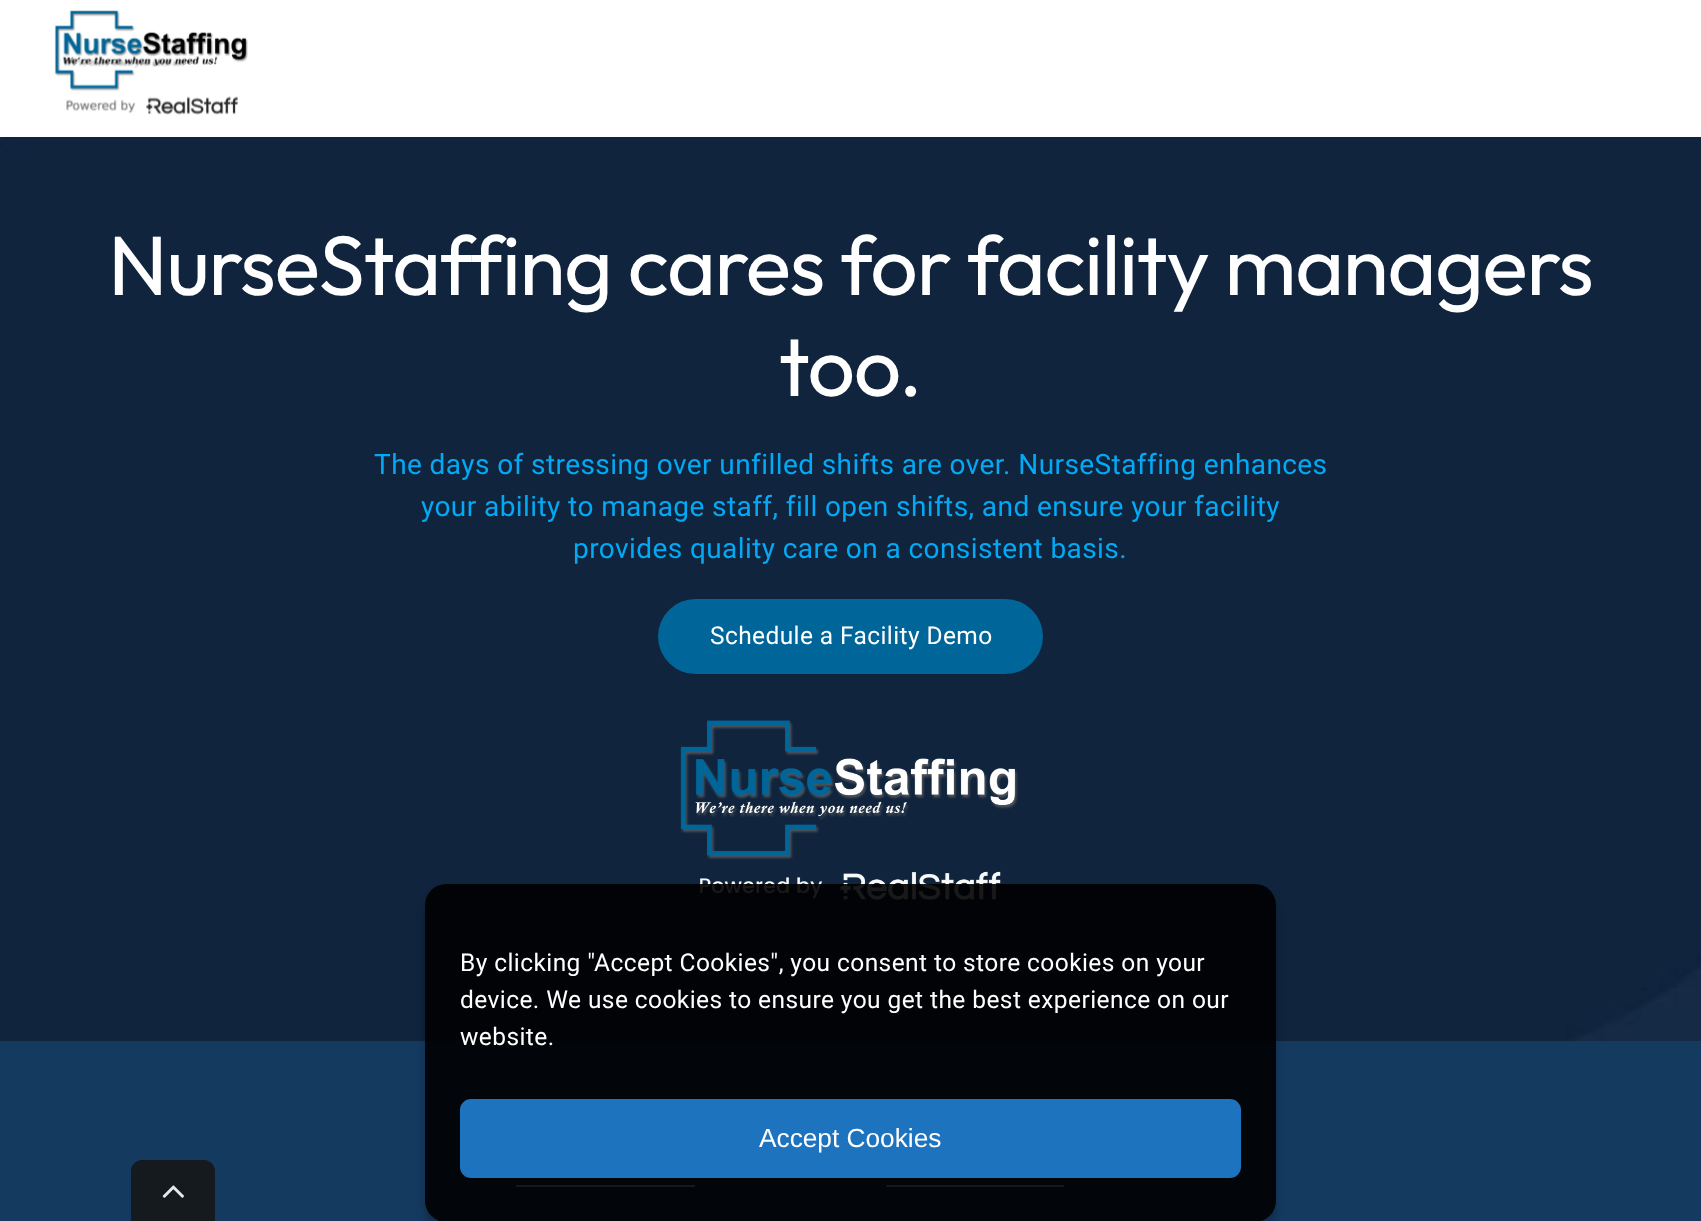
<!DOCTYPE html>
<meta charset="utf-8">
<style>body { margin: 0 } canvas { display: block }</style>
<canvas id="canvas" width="1701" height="1221"></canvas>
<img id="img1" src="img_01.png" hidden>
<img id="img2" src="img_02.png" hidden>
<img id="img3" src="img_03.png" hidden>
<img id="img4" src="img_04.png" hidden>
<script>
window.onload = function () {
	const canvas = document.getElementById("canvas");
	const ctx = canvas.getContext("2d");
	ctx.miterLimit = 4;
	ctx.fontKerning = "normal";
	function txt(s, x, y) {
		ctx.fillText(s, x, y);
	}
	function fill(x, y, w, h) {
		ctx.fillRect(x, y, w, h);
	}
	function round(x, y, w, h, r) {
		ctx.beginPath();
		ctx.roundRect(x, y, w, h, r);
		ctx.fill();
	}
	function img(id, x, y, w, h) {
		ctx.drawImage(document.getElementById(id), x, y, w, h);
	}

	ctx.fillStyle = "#FFFFFF";
	fill(0, 0, 1701, 1221);
	img("img1", 54, 10, 194, 105);
	img("img2", 0, 137, 1701, 904);
	ctx.fillStyle = "#006699";
	round(658, 599, 385, 75, 37.5);
	img("img3", 680, 720, 339, 180);
	ctx.fillStyle = "#153A60";
	fill(0, 1041, 1701, 180);
	ctx.fillStyle = "#F2F3F5";
	fill(516, 1185, 179, 2);
	fill(886, 1185, 178, 2);
	ctx.save();
	ctx.beginPath();
	ctx.moveTo(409, 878);
	ctx.lineTo(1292, 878);
	ctx.lineTo(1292, 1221);
	ctx.lineTo(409, 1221);
	ctx.closePath();
	ctx.moveTo(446, 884);
	ctx.lineTo(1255, 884);
	ctx.bezierCurveTo(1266.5, 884, 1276, 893.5, 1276, 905);
	ctx.lineTo(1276, 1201);
	ctx.bezierCurveTo(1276, 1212.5, 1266.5, 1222, 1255, 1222);
	ctx.lineTo(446, 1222);
	ctx.bezierCurveTo(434.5, 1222, 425, 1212.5, 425, 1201);
	ctx.lineTo(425, 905);
	ctx.bezierCurveTo(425, 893.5, 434.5, 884, 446, 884);
	ctx.closePath();
	ctx.clip("evenodd");
	ctx.fillStyle = "rgba(0, 0, 0, 0.23)";
	ctx.filter = "blur(5px)";
	ctx.beginPath();
	ctx.roundRect(425, 894, 851, 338, 21);
	ctx.fill();
	ctx.filter = "none";
	ctx.restore();
	ctx.fillStyle = "rgba(0, 0, 0, 0.9)";
	round(425, 884, 851, 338, 21);
	ctx.fillStyle = "#1E73BE";
	ctx.beginPath();
	ctx.roundRect(461, 1100, 779, 77, 10);
	ctx.fill();
	ctx.strokeStyle = "#1E73BE";
	ctx.lineWidth = 2;
	ctx.stroke();
	ctx.fillStyle = "#141A1E";
	ctx.beginPath();
	ctx.moveTo(142, 1160);
	ctx.lineTo(204, 1160);
	ctx.bezierCurveTo(210, 1160, 215, 1165, 215, 1171);
	ctx.lineTo(215, 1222);
	ctx.lineTo(131, 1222);
	ctx.lineTo(131, 1171);
	ctx.bezierCurveTo(131, 1165, 136, 1160, 142, 1160);
	ctx.closePath();
	ctx.fill();
	img("img4", 162, 1185, 22, 13);
	ctx.letterSpacing = "-1.25px";
	ctx.font = "84px Outfit";
	ctx.fillStyle = "#FFFFFF";
	txt("NurseStaffing cares for facility managers", 108, 295);
	txt("too.", 779, 396);
	ctx.letterSpacing = "0.42px";
	ctx.font = "28px Roboto";
	ctx.fillStyle = "#03A9F4";
	txt("The days of stressing over unfilled shifts are over. NurseStaffing enhances", 374, 474);
	txt("your ability to manage staff, fill open shifts, and ensure your facility", 421, 516);
	txt("provides quality care on a consistent basis.", 573, 558);
	ctx.letterSpacing = "0.4px";
	ctx.font = "24.5px Roboto";
	ctx.fillStyle = "#FFFFFF";
	txt("Schedule a Facility Demo", 710, 644);
	ctx.letterSpacing = "0.42px";
	txt("By clicking \"Accept Cookies\", you consent to store cookies on your", 460, 971);
	txt("device. We use cookies to ensure you get the best experience on our", 460, 1008);
	txt("website.", 460, 1045);
	ctx.letterSpacing = "0px";
	ctx.font = "26.25px Liberation Sans";
	txt("Accept Cookies", 759, 1147);
};
</script>
